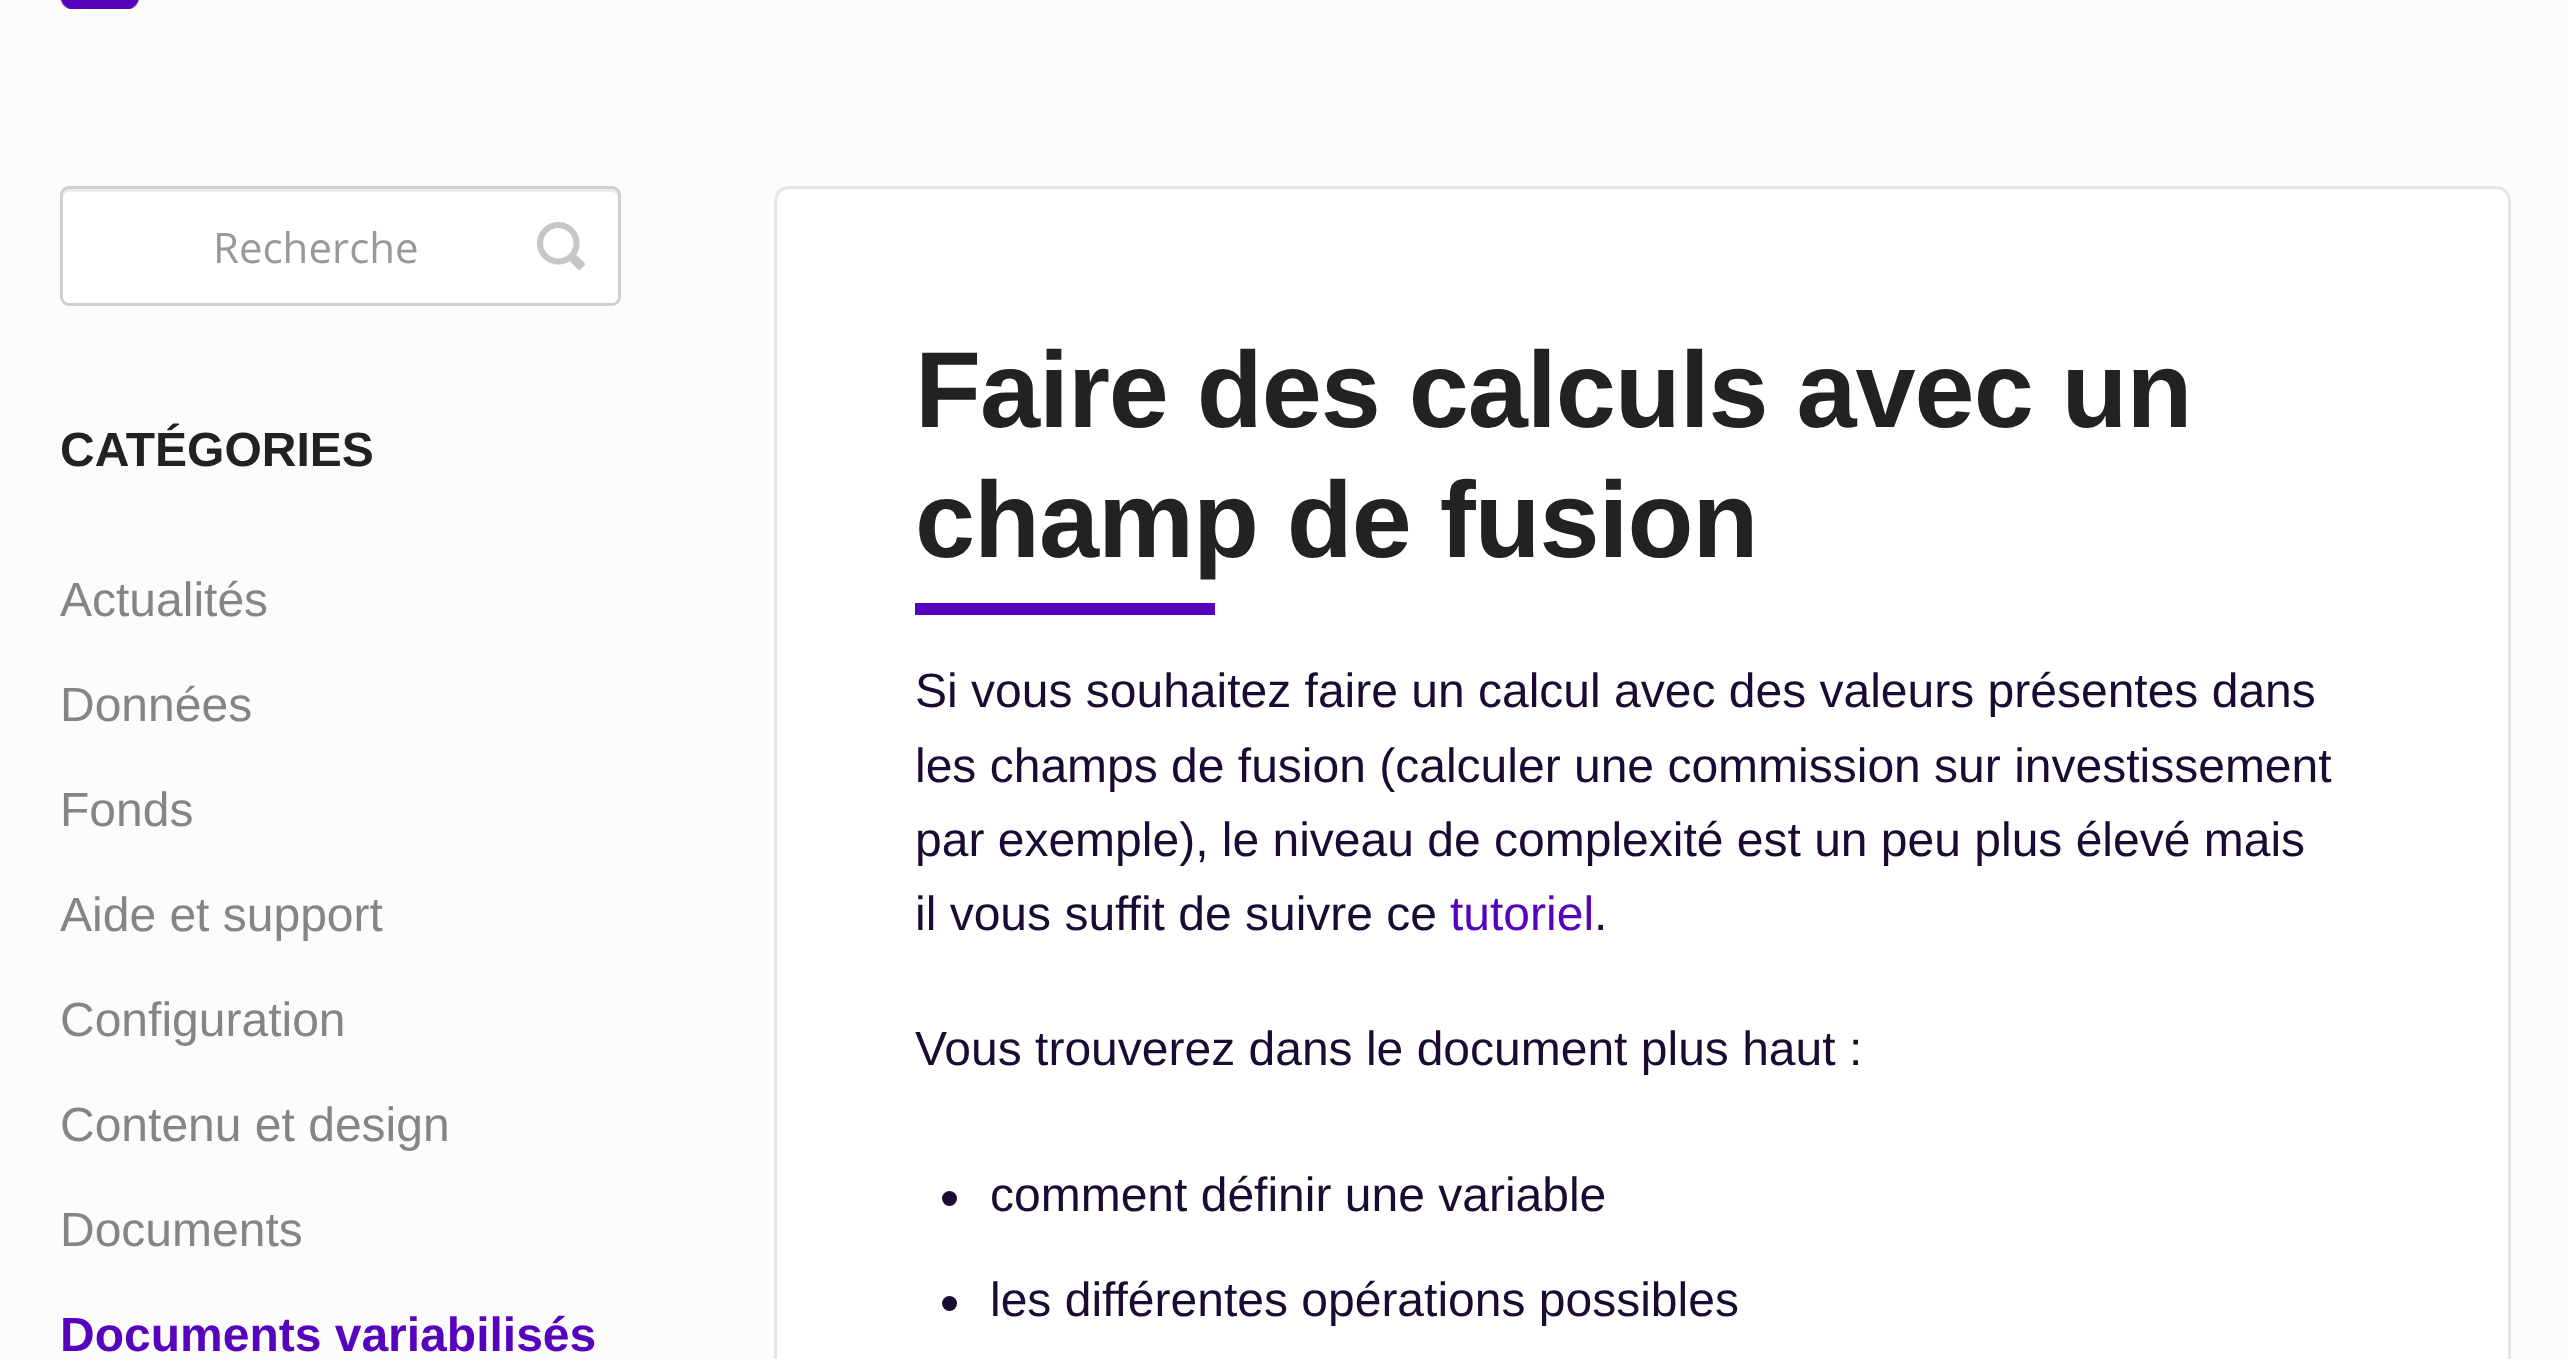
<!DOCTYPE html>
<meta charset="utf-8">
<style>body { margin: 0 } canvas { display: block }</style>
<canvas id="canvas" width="2569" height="1359"></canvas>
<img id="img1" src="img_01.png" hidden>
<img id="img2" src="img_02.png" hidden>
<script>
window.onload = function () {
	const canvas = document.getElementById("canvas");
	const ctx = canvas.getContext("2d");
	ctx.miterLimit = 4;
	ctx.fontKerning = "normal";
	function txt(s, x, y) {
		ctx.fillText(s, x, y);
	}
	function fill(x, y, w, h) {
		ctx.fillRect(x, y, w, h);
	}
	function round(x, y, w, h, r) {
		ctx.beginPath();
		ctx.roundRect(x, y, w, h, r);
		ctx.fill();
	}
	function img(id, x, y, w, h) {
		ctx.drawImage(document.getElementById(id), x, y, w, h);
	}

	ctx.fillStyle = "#FCFCFC";
	fill(0, 0, 2569, 1359);
	img("img1", 60, 0, 79, 9);
	ctx.fillStyle = "#FFFFFF";
	round(60, 186, 561, 120, 9);
	ctx.fillStyle = "#ECECEC";
	ctx.beginPath();
	ctx.moveTo(69, 192);
	ctx.lineTo(612, 192);
	ctx.bezierCurveTo(615, 192, 618, 195, 618, 198);
	ctx.lineTo(618, 195);
	ctx.bezierCurveTo(618, 192, 615, 189, 612, 189);
	ctx.lineTo(69, 189);
	ctx.bezierCurveTo(66, 189, 63, 192, 63, 195);
	ctx.lineTo(63, 198);
	ctx.bezierCurveTo(63, 195, 66, 192, 69, 192);
	ctx.closePath();
	ctx.fill();
	ctx.beginPath();
	ctx.roundRect(61.5, 187.5, 558, 117, 7.5);
	ctx.strokeStyle = "#D0D0D0";
	ctx.lineWidth = 3;
	ctx.stroke();
	img("img2", 537, 222, 48, 48);
	ctx.fillStyle = "#FFFFFF";
	ctx.beginPath();
	ctx.roundRect(775.5, 187.5, 1734, 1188, 13.5);
	ctx.fill();
	ctx.strokeStyle = "#E9E5E5";
	ctx.stroke();
	ctx.fillStyle = "#5702BC";
	fill(915, 603, 300, 12);
	ctx.fillStyle = "#1B0B33";
	ctx.beginPath();
	ctx.arc(949.5, 1198.5, 7.5, 0, Math.PI * 2);
	ctx.fill();
	ctx.beginPath();
	ctx.arc(949.5, 1303.5, 7.5, 0, Math.PI * 2);
	ctx.fill();
	ctx.font = "42px Open Sans";
	ctx.fillStyle = "#999999";
	txt("Recherche", 213, 263);
	ctx.font = "bold 48px Liberation Sans";
	ctx.fillStyle = "#222222";
	txt("CATÉGORIES", 60, 466);
	ctx.font = "48px Liberation Sans";
	ctx.fillStyle = "#858585";
	txt("Actualités", 60, 616);
	txt("Données", 60, 721);
	txt("Fonds", 60, 826);
	txt("Aide et support", 60, 931);
	txt("Configuration", 60, 1036);
	txt("Contenu et design", 60, 1141);
	txt("Documents", 60, 1246);
	ctx.font = "bold 48px Liberation Sans";
	ctx.fillStyle = "#5702BC";
	txt("Documents variabilisés", 60, 1351);
	ctx.letterSpacing = "-1.05px";
	ctx.font = "bold 108px Liberation Sans";
	ctx.fillStyle = "#222222";
	txt("Faire des calculs avec un", 915, 427);
	txt("champ de fusion", 915, 557);
	ctx.letterSpacing = "0px";
	ctx.font = "48px Liberation Sans";
	ctx.fillStyle = "#1B0B33";
	txt("Si vous souhaitez faire un calcul avec des valeurs présentes dans", 915, 707);
	txt("les champs de fusion (calculer une commission sur investissement", 915, 782);
	txt("par exemple), le niveau de complexité est un peu plus élevé mais", 915, 856);
	txt("il vous suffit de suivre ce", 915, 930);
	ctx.fillStyle = "#5702BC";
	txt("tutoriel", 1450, 930);
	ctx.fillStyle = "#1B0B33";
	txt(".", 1594, 930);
	txt("Vous trouverez dans le document plus haut :", 915, 1065);
	txt("comment définir une variable", 990, 1211);
	txt("les différentes opérations possibles", 990, 1316);
};
</script>
